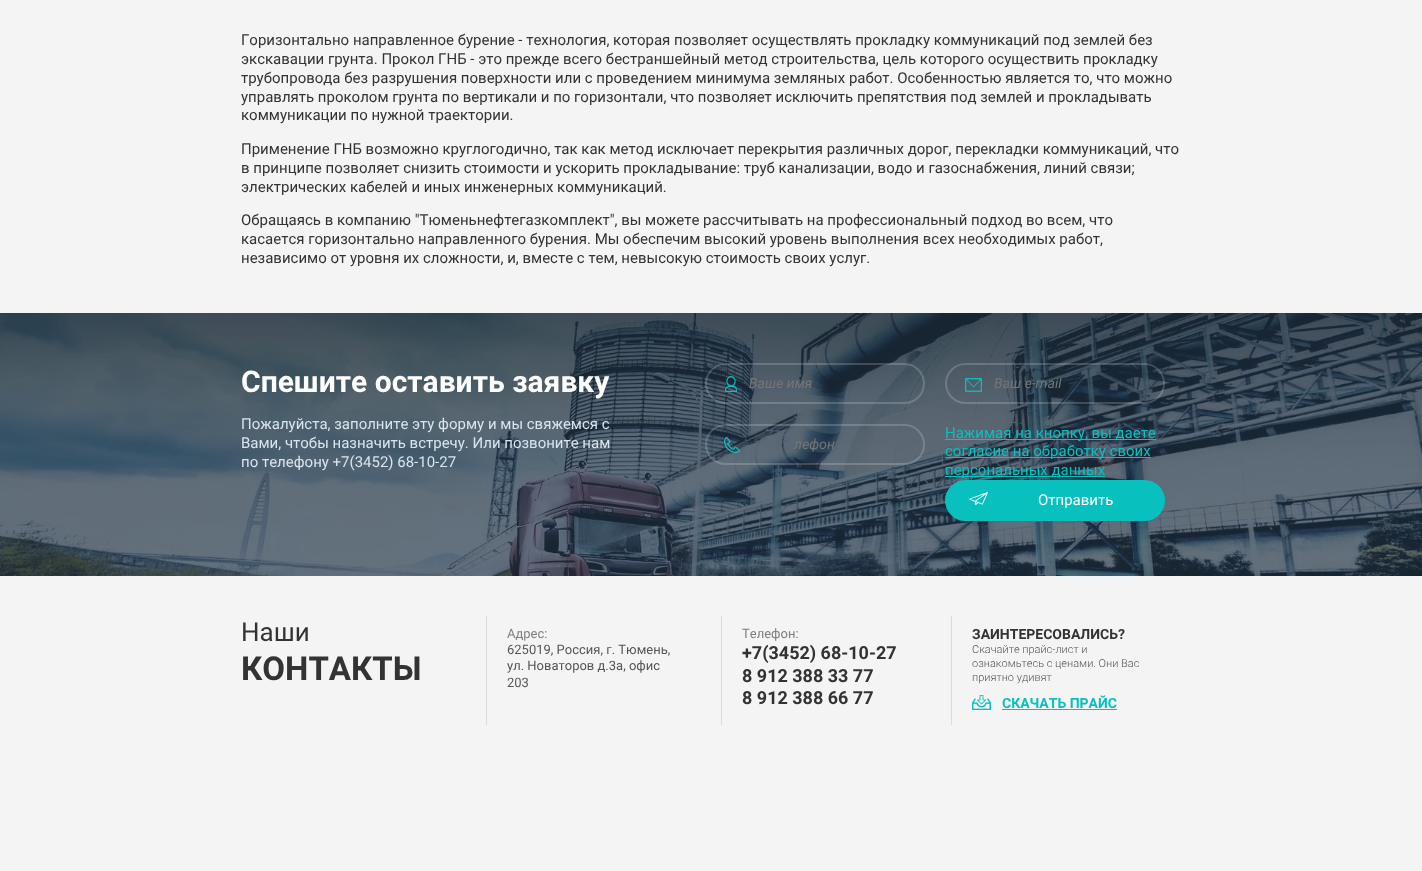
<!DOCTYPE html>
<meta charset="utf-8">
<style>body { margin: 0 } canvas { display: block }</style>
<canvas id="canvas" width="1422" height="871"></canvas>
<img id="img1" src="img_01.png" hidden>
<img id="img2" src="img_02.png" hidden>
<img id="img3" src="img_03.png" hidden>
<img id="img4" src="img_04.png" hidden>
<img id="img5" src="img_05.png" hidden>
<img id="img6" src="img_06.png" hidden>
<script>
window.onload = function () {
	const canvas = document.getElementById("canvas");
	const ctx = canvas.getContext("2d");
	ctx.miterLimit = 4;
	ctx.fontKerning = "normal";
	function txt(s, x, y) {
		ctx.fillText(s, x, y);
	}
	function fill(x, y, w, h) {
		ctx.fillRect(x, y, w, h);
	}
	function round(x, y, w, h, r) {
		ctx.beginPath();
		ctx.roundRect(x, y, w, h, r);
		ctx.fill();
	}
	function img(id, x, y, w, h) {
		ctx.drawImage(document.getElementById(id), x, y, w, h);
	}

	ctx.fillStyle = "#F5F4F4";
	fill(0, 0, 1422, 871);
	img("img1", 0, 313, 1422, 263);
	img("img2", 725, 376, 12, 16);
	ctx.beginPath();
	ctx.roundRect(706, 364, 218, 39, 19.5);
	ctx.strokeStyle = "rgba(255, 255, 255, 0.18)";
	ctx.lineWidth = 2;
	ctx.stroke();
	img("img3", 965, 378, 17, 14);
	ctx.beginPath();
	ctx.roundRect(946, 364, 218, 39, 19.5);
	ctx.stroke();
	img("img4", 724, 437, 16, 16);
	ctx.beginPath();
	ctx.roundRect(706, 425, 218, 39, 19.5);
	ctx.stroke();
	ctx.fillStyle = "#08C1BF";
	fill(945, 439, 211, 1);
	fill(945, 457, 206, 1);
	fill(945, 476, 160, 1);
	round(945, 480, 220, 41, 20.5);
	img("img5", 969, 492, 19, 13);
	ctx.fillStyle = "#DDDCDC";
	fill(486, 616, 1, 109);
	fill(721, 616, 1, 109);
	fill(951, 616, 1, 109);
	img("img6", 972, 695, 19, 15);
	ctx.fillStyle = "#08C1BF";
	fill(1002, 709, 115, 1);
	ctx.font = "15px Roboto";
	ctx.fillStyle = "#333333";
	txt("Горизонтально направленное бурение - технология, которая позволяет осуществлять прокладку коммуникаций под землей без", 241, 45);
	txt("экскавации грунта. Прокол ГНБ - это прежде всего бестраншейный метод строительства, цель которого осуществить прокладку", 241, 64);
	txt("трубопровода без разрушения поверхности или с проведением минимума земляных работ. Особенностью является то, что можно", 241, 83);
	txt("управлять проколом грунта по вертикали и по горизонтали, что позволяет исключить препятствия под землей и прокладывать", 241, 102);
	txt("коммуникации по нужной траектории.", 241, 120);
	txt("Применение ГНБ возможно круглогодично, так как метод исключает перекрытия различных дорог, перекладки коммуникаций, что", 241, 154);
	txt("в принципе позволяет снизить стоимости и ускорить прокладывание: труб канализации, водо и газоснабжения, линий связи;", 241, 173);
	txt("электрических кабелей и иных инженерных коммуникаций.", 241, 192);
	txt("Обращаясь в компанию \"Тюменьнефтегазкомплект\", вы можете рассчитывать на профессиональный подход во всем, что", 241, 225);
	txt("касается горизонтально направленного бурения. Мы обеспечим высокий уровень выполнения всех необходимых работ,", 241, 244);
	txt("независимо от уровня их сложности, и, вместе с тем, невысокую стоимость своих услуг.", 241, 263);
	ctx.font = "bold 30px Roboto";
	ctx.fillStyle = "#FFFFFF";
	txt("Спешите оставить заявку", 241, 392);
	ctx.font = "15px Roboto";
	ctx.fillStyle = "#D9E4EE";
	txt("Пожалуйста, заполните эту форму и мы свяжемся с", 241, 429);
	txt("Вами, чтобы назначить встречу. Или позвоните нам", 241, 448);
	txt("по телефону +7(3452) 68-10-27", 241, 467);
	ctx.font = "italic 14px Roboto";
	ctx.fillStyle = "#757575";
	txt("Ваше имя", 749, 388);
	txt("Ваш e-mail", 994, 388);
	txt("лефон", 794, 449);
	ctx.font = "15px Roboto";
	ctx.fillStyle = "#08C1BF";
	txt("Нажимая на кнопку, вы даете", 945, 438);
	txt("согласие на обработку своих", 945, 456);
	txt("персональных данных", 945, 475);
	ctx.fillStyle = "#FFFFFF";
	txt("Отправить", 1038, 505);
	ctx.font = "26px Roboto";
	ctx.fillStyle = "#333333";
	txt("Наши", 241, 641);
	ctx.font = "bold 33px Roboto";
	txt("КОНТАКТЫ", 241, 680);
	ctx.font = "13px Roboto";
	ctx.fillStyle = "#7E7E7F";
	txt("Адрес:", 507, 638);
	ctx.fillStyle = "#555555";
	txt("625019, Россия, г. Тюмень,", 507, 654);
	txt("ул. Новаторов д.3а, офис", 507, 670);
	txt("203", 507, 687);
	ctx.fillStyle = "#7E7E7F";
	txt("Телефон:", 742, 638);
	ctx.font = "bold 18px Roboto";
	ctx.fillStyle = "#333333";
	txt("+7(3452) 68-10-27", 742, 659);
	txt("8 912 388 33 77", 742, 682);
	txt("8 912 388 66 77", 742, 704);
	ctx.font = "bold 14px Roboto";
	txt("ЗАИНТЕРЕСОВАЛИСЬ?", 972, 639);
	ctx.font = "300 11px Roboto";
	ctx.fillStyle = "#555555";
	txt("Скачайте прайс-лист и", 972, 653);
	txt("ознакомьтесь с ценами. Они Вас", 972, 667);
	txt("приятно удивят", 972, 681);
	ctx.font = "bold 14px Roboto";
	ctx.fillStyle = "#08C1BF";
	txt("СКАЧАТЬ ПРАЙС", 1002, 708);
};
</script>
